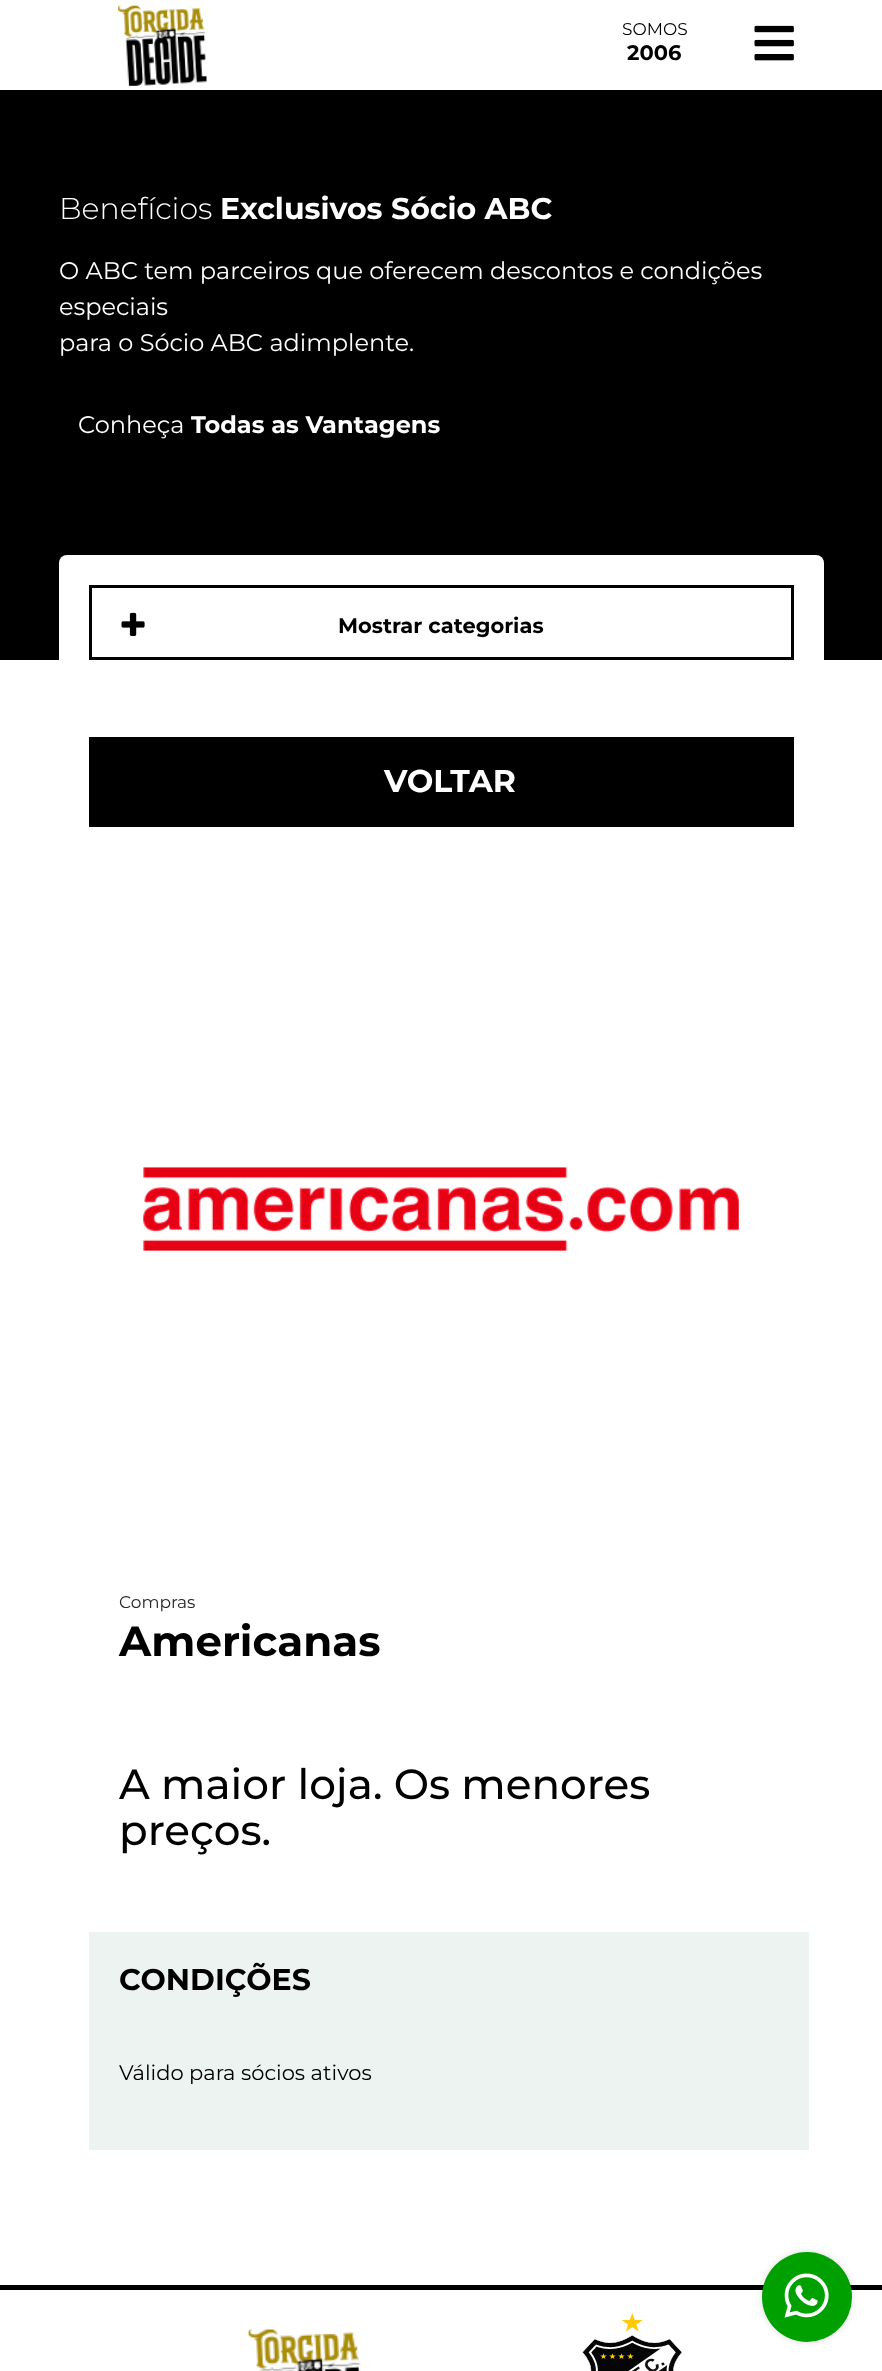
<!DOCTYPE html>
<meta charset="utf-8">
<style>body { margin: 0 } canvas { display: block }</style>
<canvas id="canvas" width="882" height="2371"></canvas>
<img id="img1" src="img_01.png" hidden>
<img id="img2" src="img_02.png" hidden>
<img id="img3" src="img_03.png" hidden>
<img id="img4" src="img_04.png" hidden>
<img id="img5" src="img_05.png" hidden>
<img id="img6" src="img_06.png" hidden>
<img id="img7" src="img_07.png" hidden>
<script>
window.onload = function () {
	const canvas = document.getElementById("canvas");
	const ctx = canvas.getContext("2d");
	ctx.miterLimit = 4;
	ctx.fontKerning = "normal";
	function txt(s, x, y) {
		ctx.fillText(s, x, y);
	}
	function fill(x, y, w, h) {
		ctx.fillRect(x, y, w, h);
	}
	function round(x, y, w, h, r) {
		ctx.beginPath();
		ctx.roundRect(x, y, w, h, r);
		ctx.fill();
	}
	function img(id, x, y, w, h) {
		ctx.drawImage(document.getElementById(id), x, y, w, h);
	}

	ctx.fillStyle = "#FFFFFF";
	fill(0, 0, 882, 2371);
	img("img1", 117, 5, 91, 81);
	img("img2", 754, 25, 40, 36);
	ctx.fillStyle = "#000000";
	fill(0, 90, 882, 570);
	ctx.fillStyle = "#FFFFFF";
	round(59, 555, 765, 1670, 8);
	ctx.strokeStyle = "#000000";
	ctx.lineWidth = 3;
	ctx.strokeRect(90.5, 586.5, 702, 72);
	img("img3", 121, 612, 24, 24);
	ctx.fillStyle = "#000000";
	fill(89, 737, 705, 90);
	img("img4", 143, 1167, 596, 84);
	ctx.fillStyle = "#EDF3F1";
	fill(89, 1932, 720, 218);
	ctx.fillStyle = "#000000";
	fill(0, 2285, 882, 5);
	ctx.fillStyle = "rgba(0, 0, 0, 0.15)";
	ctx.filter = "blur(3px)";
	ctx.beginPath();
	ctx.roundRect(762, 2252, 90, 90, 45);
	ctx.fill();
	ctx.filter = "none";
	ctx.fillStyle = "#00A000";
	ctx.beginPath();
	ctx.arc(807, 2297, 45, 0, Math.PI * 2);
	ctx.fill();
	img("img5", 784, 2273, 45, 45);
	img("img6", 248, 2329, 113, 42);
	img("img7", 582, 2313, 100, 58);
	ctx.font = "100 17px 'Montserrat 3'";
	ctx.fillStyle = "#000000";
	txt("SOMOS", 622, 35);
	ctx.font = "100 21px 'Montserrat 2'";
	txt("2006", 627, 60);
	ctx.font = "100 30px Montserrat";
	ctx.fillStyle = "#FFFFFF";
	txt("Benefícios", 59, 219);
	ctx.font = "100 30px 'Montserrat 2'";
	txt("Exclusivos Sócio ABC", 220, 219);
	ctx.font = "100 24px 'Montserrat 3'";
	txt("O ABC tem parceiros que oferecem descontos e condições", 59, 279);
	txt("especiais", 59, 315);
	txt("para o Sócio ABC adimplente.", 59, 351);
	txt("Conheça", 78, 433);
	ctx.font = "100 24px 'Montserrat 2'";
	txt("Todas as Vantagens", 191, 433);
	ctx.font = "100 21px 'Montserrat 2'";
	ctx.fillStyle = "#000000";
	txt("Mostrar categorias", 338, 633);
	ctx.font = "100 31.5px 'Montserrat 2'";
	ctx.fillStyle = "#FFFFFF";
	txt("VOLTAR", 384, 792);
	ctx.font = "100 17px 'Montserrat 3'";
	ctx.fillStyle = "#262626";
	txt("Compras", 119, 1608);
	ctx.font = "100 42px 'Montserrat 2'";
	ctx.fillStyle = "#000000";
	txt("Americanas", 119, 1656);
	ctx.font = "100 42px 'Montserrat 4'";
	txt("A maior loja. Os menores", 119, 1799);
	txt("preços.", 119, 1845);
	ctx.font = "100 30px 'Montserrat 2'";
	txt("CONDIÇÕES", 119, 1990);
	ctx.font = "100 21px 'Montserrat 3'";
	txt("Válido para sócios ativos", 119, 2080);
};
</script>
